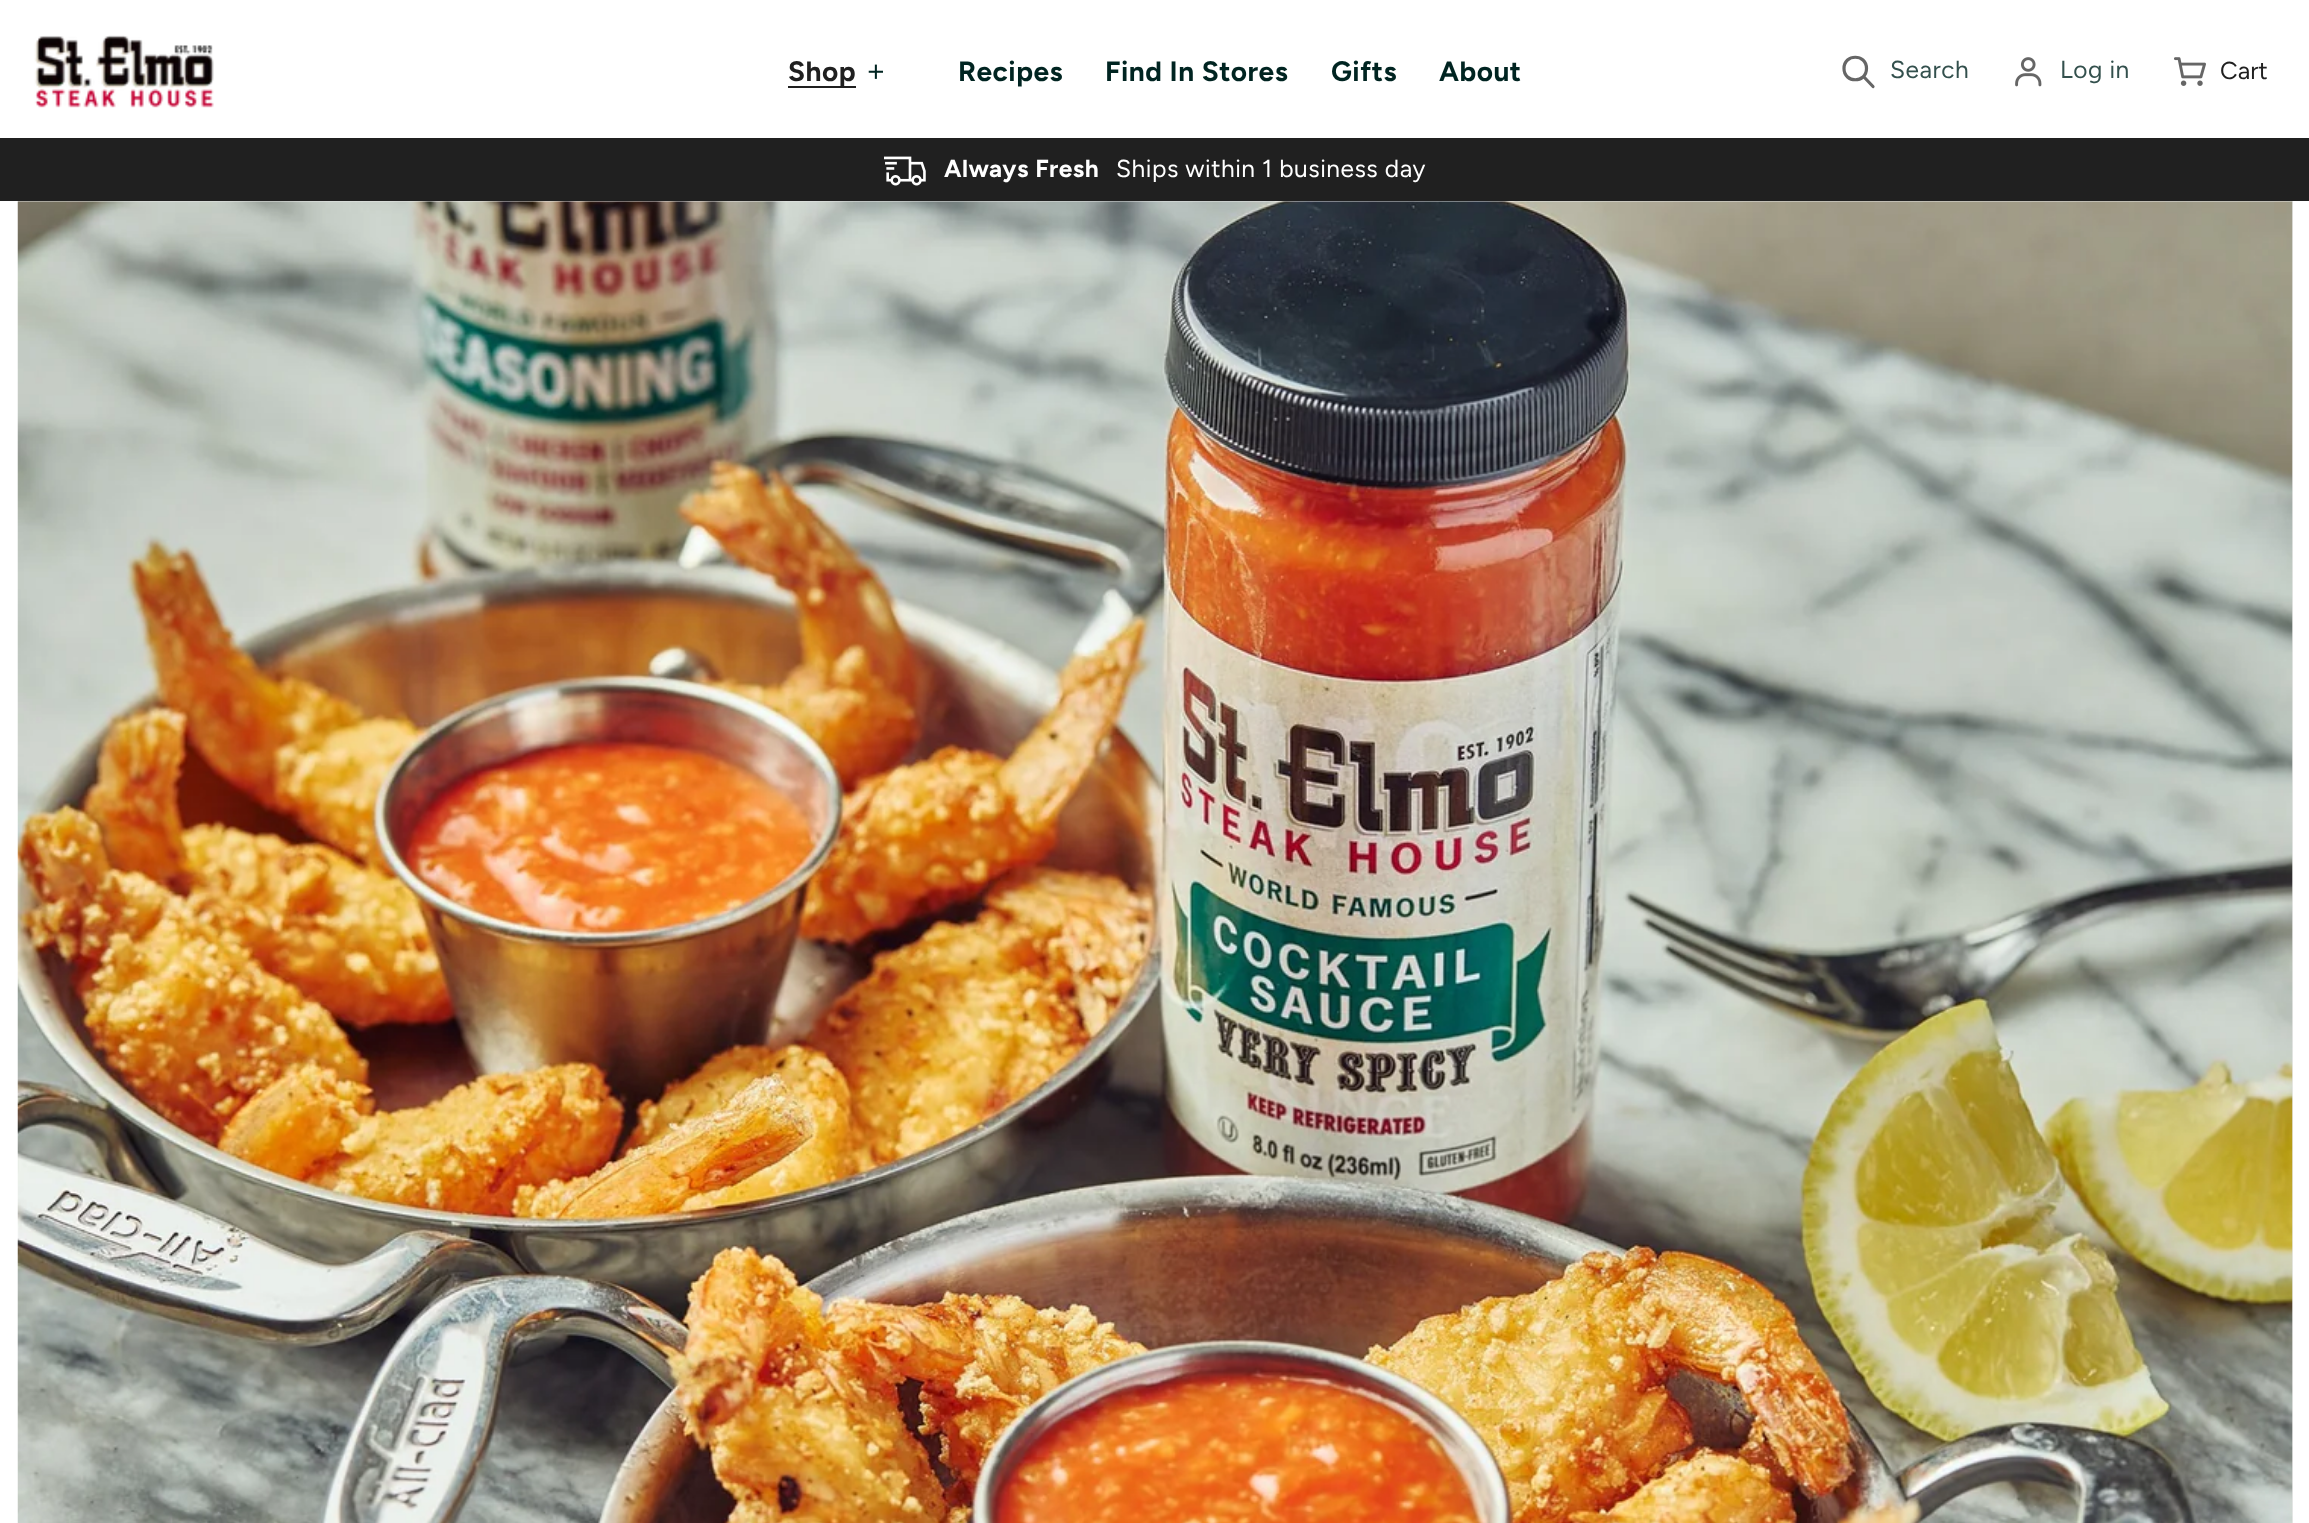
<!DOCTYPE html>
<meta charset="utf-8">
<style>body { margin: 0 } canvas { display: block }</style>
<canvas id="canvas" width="2309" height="1523"></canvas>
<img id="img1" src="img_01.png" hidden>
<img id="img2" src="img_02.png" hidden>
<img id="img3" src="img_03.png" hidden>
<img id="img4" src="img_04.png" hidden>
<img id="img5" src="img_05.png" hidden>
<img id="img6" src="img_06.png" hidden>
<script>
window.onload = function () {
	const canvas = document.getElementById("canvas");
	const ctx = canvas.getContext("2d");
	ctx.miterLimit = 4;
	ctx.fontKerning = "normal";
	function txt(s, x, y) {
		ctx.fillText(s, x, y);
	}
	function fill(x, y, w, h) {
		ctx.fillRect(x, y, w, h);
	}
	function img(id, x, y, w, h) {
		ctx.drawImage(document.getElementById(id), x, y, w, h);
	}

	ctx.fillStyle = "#FFFFFF";
	fill(0, 0, 2309, 1523);
	img("img1", 34, 35, 180, 73);
	ctx.fillStyle = "#202020";
	fill(788, 86, 68, 2);
	img("img2", 868, 64, 15, 15);
	ctx.beginPath();
	ctx.moveTo(1873, 86.5);
	ctx.lineTo(1863.5, 76.5);
	ctx.moveTo(1844, 68.5);
	ctx.bezierCurveTo(1844, 83.5, 1866.5, 83.5, 1866.5, 68.5);
	ctx.bezierCurveTo(1866.5, 53.5, 1844, 53.5, 1844, 68.5);
	ctx.closePath();
	ctx.strokeStyle = "#666666";
	ctx.lineWidth = 3.2;
	ctx.lineCap = "round";
	ctx.lineJoin = "round";
	ctx.stroke();
	img("img3", 2015, 57, 27, 30);
	img("img4", 2174, 57, 32, 29);
	fill(0, 138, 2309, 63);
	img("img5", 884, 156, 42, 30);
	ctx.fillStyle = "#EAEAEA";
	fill(18, 201, 2275, 1322);
	img("img6", 17, 201, 2276, 1322);
	ctx.letterSpacing = "0.5px";
	ctx.font = "bold 28px Figtree";
	ctx.fillStyle = "#202020";
	txt("Shop", 788, 81);
	ctx.fillStyle = "#002421";
	txt("Recipes", 958, 81);
	txt("Find In Stores", 1105, 81);
	txt("Gifts", 1331, 81);
	txt("About", 1439, 81);
	ctx.font = "24.5px Figtree";
	ctx.fillStyle = "#33504D";
	txt("Search", 1890, 78);
	txt("Log in", 2060, 78);
	ctx.letterSpacing = "0px";
	ctx.fillStyle = "#202020";
	txt("Cart", 2220, 79);
	ctx.letterSpacing = "0.5px";
	ctx.font = "bold 24.5px Figtree";
	ctx.fillStyle = "#FFFFFF";
	txt("Always Fresh", 944, 177);
	ctx.font = "24.5px Figtree";
	txt("Ships within 1 business day", 1116, 177);
};
</script>
